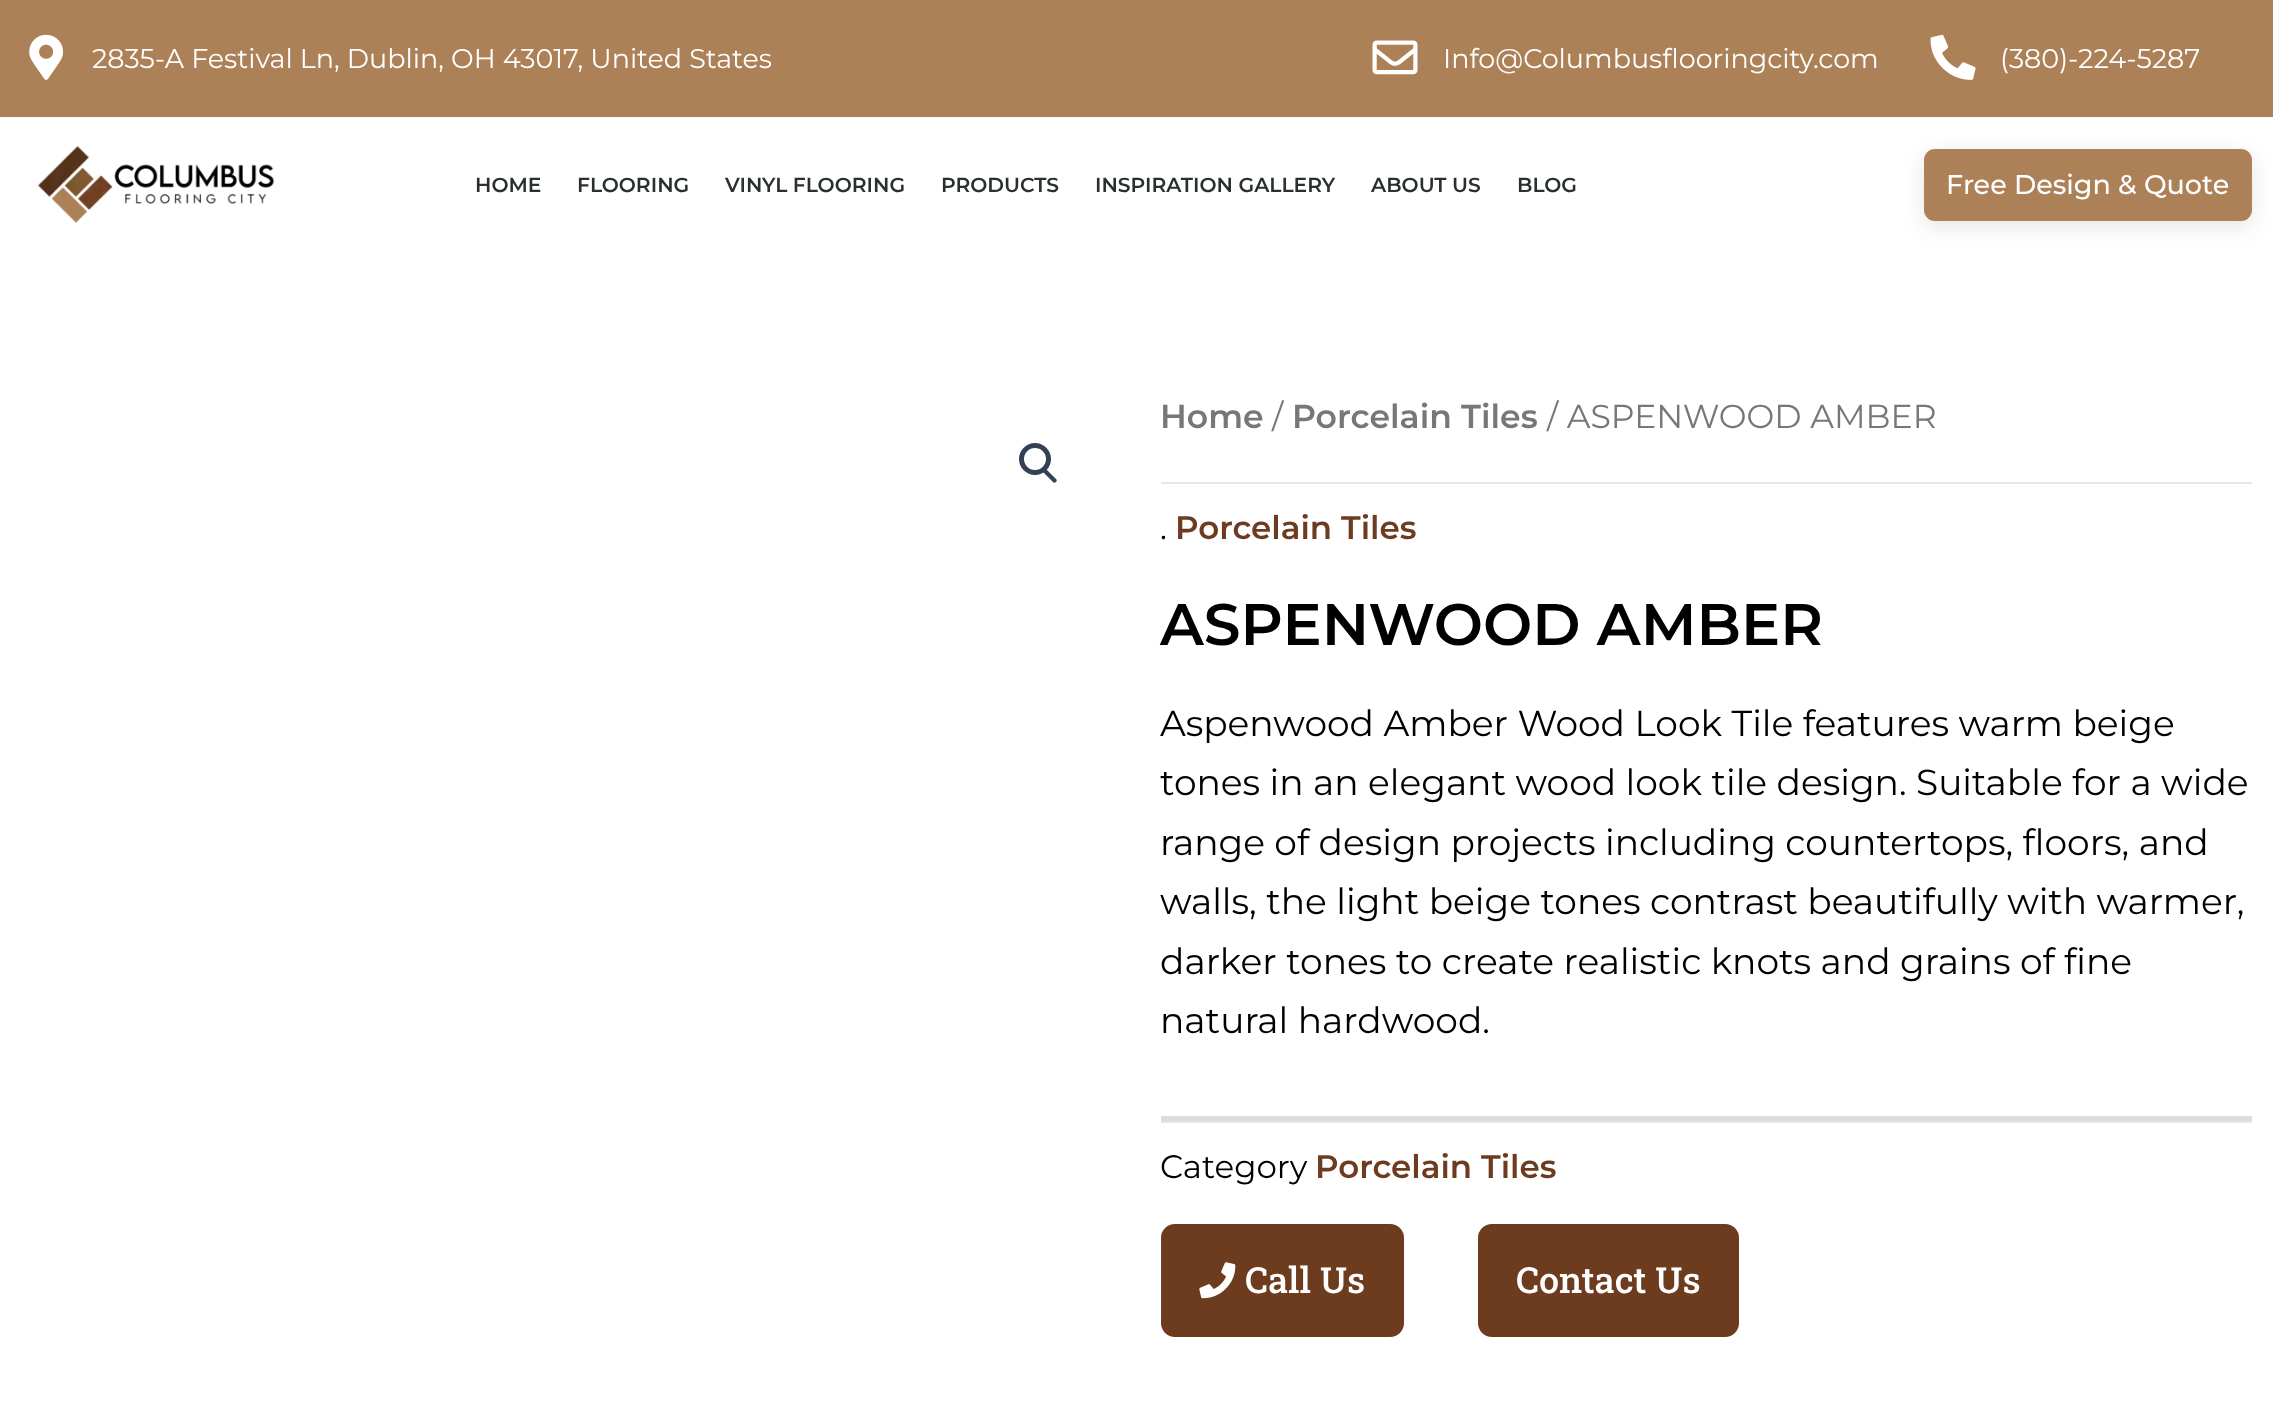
<!DOCTYPE html>
<meta charset="utf-8">
<style>body { margin: 0 } canvas { display: block }</style>
<canvas id="canvas" width="2273" height="1413"></canvas>
<img id="img1" src="img_01.png" hidden>
<img id="img2" src="img_02.png" hidden>
<img id="img3" src="img_03.png" hidden>
<img id="img4" src="img_04.png" hidden>
<img id="img5" src="img_05.png" hidden>
<script>
window.onload = function () {
	const canvas = document.getElementById("canvas");
	const ctx = canvas.getContext("2d");
	ctx.miterLimit = 4;
	ctx.fontKerning = "normal";
	function txt(s, x, y) {
		ctx.fillText(s, x, y);
	}
	function fill(x, y, w, h) {
		ctx.fillRect(x, y, w, h);
	}
	function img(id, x, y, w, h) {
		ctx.drawImage(document.getElementById(id), x, y, w, h);
	}

	ctx.fillStyle = "#FFFFFF";
	fill(0, 0, 2273, 1413);
	ctx.fillStyle = "#AD8157";
	fill(0, 0, 2273, 117);
	img("img1", 29, 34, 34, 46);
	img("img2", 1372, 40, 46, 35);
	img("img3", 1930, 34, 46, 46);
	img("img4", 37, 145, 238, 78);
	ctx.fillStyle = "rgba(0, 0, 0, 0.1)";
	ctx.filter = "blur(11px)";
	ctx.beginPath();
	ctx.roundRect(1924, 155, 328, 72, 11);
	ctx.fill();
	ctx.filter = "none";
	ctx.fillStyle = "#AD8157";
	ctx.beginPath();
	ctx.roundRect(1926.5, 151.5, 323, 67, 8.5);
	ctx.fill();
	ctx.strokeStyle = "#AD8157";
	ctx.lineWidth = 5;
	ctx.stroke();
	ctx.beginPath();
	ctx.arc(1035, 459, 13.5, 0, Math.PI * 2);
	ctx.strokeStyle = "#334155";
	ctx.stroke();
	ctx.fillStyle = "#334155";
	ctx.beginPath();
	ctx.moveTo(1043.5, 469.5);
	ctx.bezierCurveTo(1044, 468.5, 1045.5, 468.5, 1046.5, 469.5);
	ctx.lineTo(1056, 479);
	ctx.bezierCurveTo(1057, 480, 1057, 481, 1056, 482);
	ctx.bezierCurveTo(1055, 483, 1053.5, 483, 1053, 482);
	ctx.lineTo(1043.5, 472.5);
	ctx.bezierCurveTo(1042.5, 471.5, 1042.5, 470, 1043.5, 469.5);
	ctx.closePath();
	ctx.fill();
	ctx.fillStyle = "#E2E8F0";
	fill(1161, 482, 1091, 2);
	ctx.fillStyle = "#DCDCDC";
	fill(1161, 1116, 1091, 5);
	ctx.fillStyle = "#E2E8F0";
	fill(1161, 1121, 1091, 2);
	ctx.fillStyle = "#6D3B1E";
	ctx.beginPath();
	ctx.roundRect(1163.5, 1226.5, 238, 108, 11.5);
	ctx.fill();
	ctx.strokeStyle = "#6D3B1E";
	ctx.stroke();
	img("img5", 1199, 1262, 37, 37);
	ctx.beginPath();
	ctx.roundRect(1480.5, 1226.5, 256, 108, 11.5);
	ctx.fill();
	ctx.stroke();
	ctx.font = "27px Montserrat";
	ctx.fillStyle = "#FFFFFF";
	txt("2835-A Festival Ln, Dublin, OH 43017, United States", 92, 68);
	txt("Info@Columbusflooringcity.com", 1443, 68);
	txt("(380)-224-5287", 2000, 68);
	ctx.font = "600 20.25px Montserrat";
	ctx.fillStyle = "#2A302F";
	txt("HOME", 475, 192);
	txt("FLOORING", 577, 192);
	txt("VINYL FLOORING", 725, 192);
	txt("PRODUCTS", 941, 192);
	txt("INSPIRATION GALLERY", 1095, 192);
	txt("ABOUT US", 1371, 192);
	txt("BLOG", 1517, 192);
	ctx.font = "500 27px Montserrat";
	ctx.fillStyle = "#FFFFFF";
	txt("Free Design & Quote", 1946, 194);
	ctx.font = "600 33.1px Montserrat";
	ctx.fillStyle = "#777777";
	txt("Home", 1160, 428);
	ctx.font = "33.1px Montserrat";
	txt("/", 1272, 428);
	ctx.font = "600 33.1px Montserrat";
	txt("Porcelain Tiles", 1292, 428);
	ctx.font = "33.1px Montserrat";
	txt("/ ASPENWOOD AMBER", 1547, 428);
	ctx.font = "32.5px Montserrat";
	ctx.fillStyle = "#000000";
	txt(".", 1160, 539);
	ctx.font = "600 32.5px Montserrat";
	ctx.fillStyle = "#6D3B1F";
	txt("Porcelain Tiles", 1175, 539);
	ctx.font = "600 58.5px Montserrat";
	ctx.fillStyle = "#000000";
	txt("ASPENWOOD AMBER", 1160, 645);
	ctx.font = "36px Montserrat";
	txt("Aspenwood Amber Wood Look Tile features warm beige", 1160, 736);
	txt("tones in an elegant wood look tile design. Suitable for a wide", 1160, 795);
	txt("range of design projects including countertops, floors, and", 1160, 855);
	txt("walls, the light beige tones contrast beautifully with warmer,", 1160, 914);
	txt("darker tones to create realistic knots and grains of fine", 1160, 974);
	txt("natural hardwood.", 1160, 1033);
	ctx.font = "32.5px Montserrat";
	txt("Category", 1160, 1178);
	ctx.font = "600 32.5px Montserrat";
	ctx.fillStyle = "#6D3B1F";
	txt("Porcelain Tiles", 1315, 1178);
	ctx.font = "500 36px Roboto Slab";
	ctx.fillStyle = "#FFFFFF";
	txt("Call Us", 1245, 1293);
	txt("Contact Us", 1516, 1293);
};
</script>
